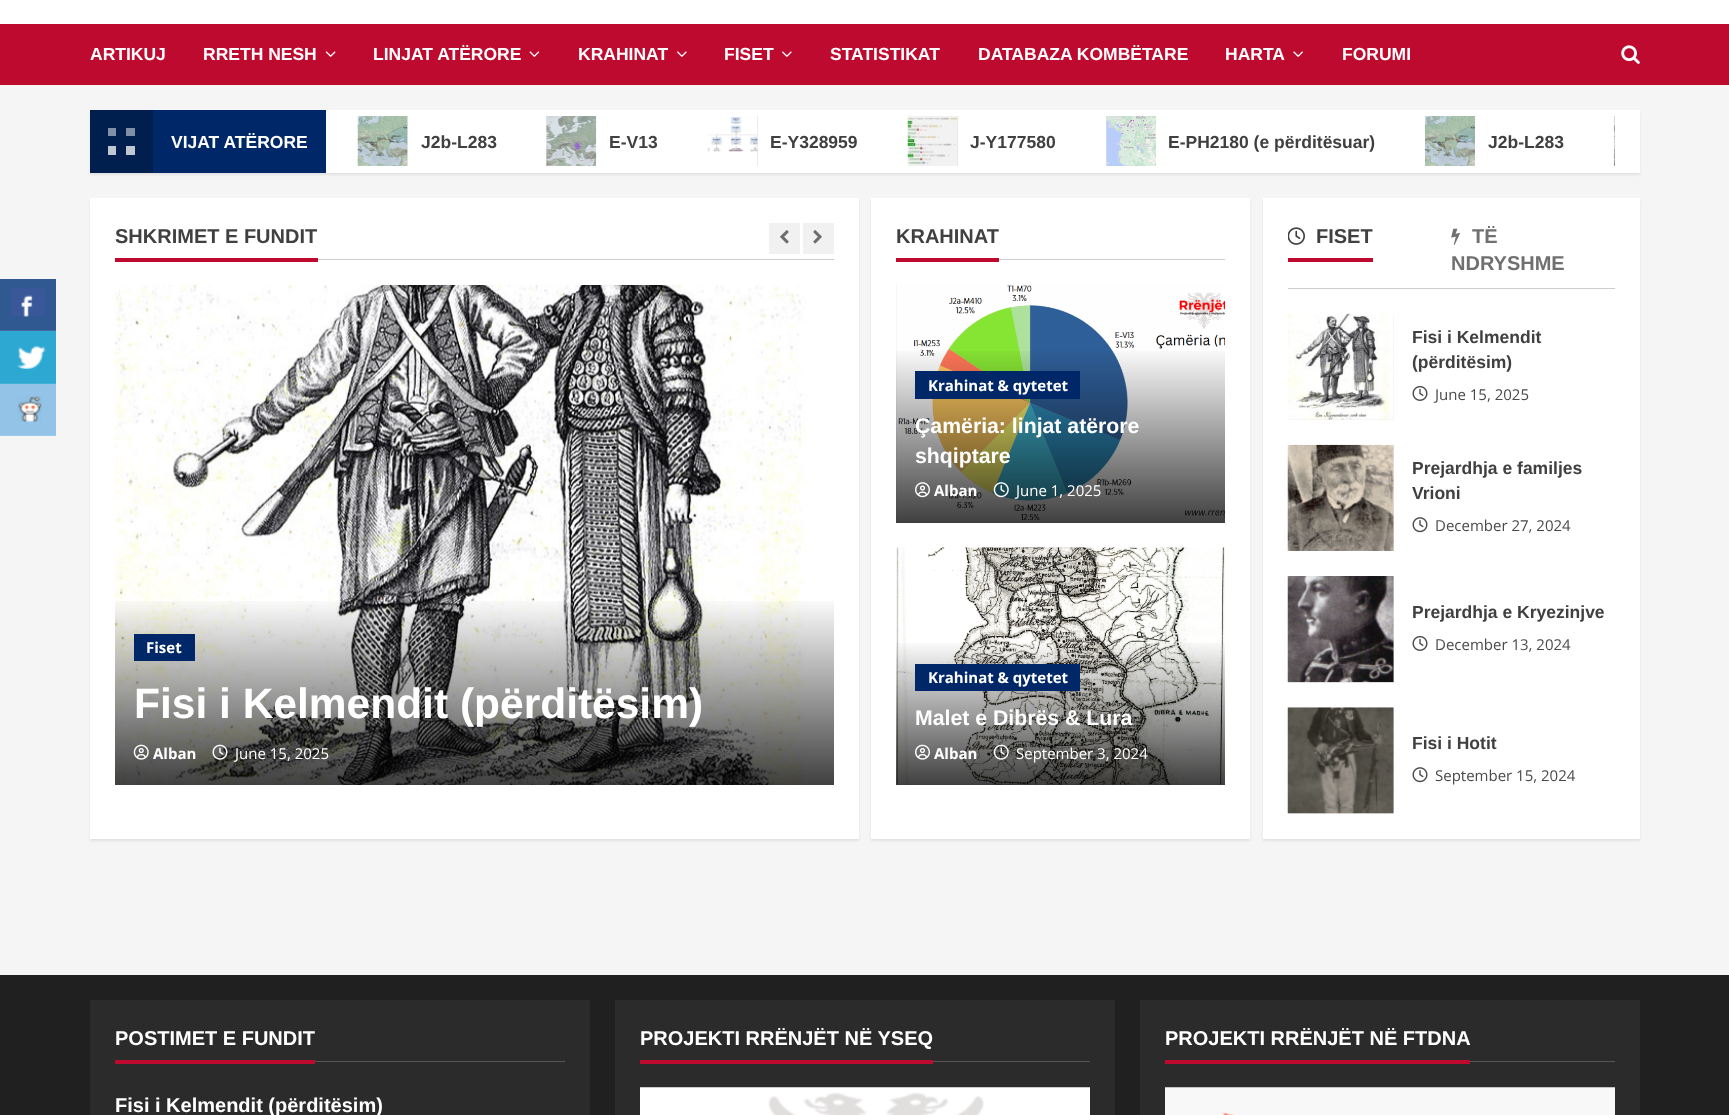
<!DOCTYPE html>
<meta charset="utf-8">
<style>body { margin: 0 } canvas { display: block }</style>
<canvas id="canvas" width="1729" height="1115"></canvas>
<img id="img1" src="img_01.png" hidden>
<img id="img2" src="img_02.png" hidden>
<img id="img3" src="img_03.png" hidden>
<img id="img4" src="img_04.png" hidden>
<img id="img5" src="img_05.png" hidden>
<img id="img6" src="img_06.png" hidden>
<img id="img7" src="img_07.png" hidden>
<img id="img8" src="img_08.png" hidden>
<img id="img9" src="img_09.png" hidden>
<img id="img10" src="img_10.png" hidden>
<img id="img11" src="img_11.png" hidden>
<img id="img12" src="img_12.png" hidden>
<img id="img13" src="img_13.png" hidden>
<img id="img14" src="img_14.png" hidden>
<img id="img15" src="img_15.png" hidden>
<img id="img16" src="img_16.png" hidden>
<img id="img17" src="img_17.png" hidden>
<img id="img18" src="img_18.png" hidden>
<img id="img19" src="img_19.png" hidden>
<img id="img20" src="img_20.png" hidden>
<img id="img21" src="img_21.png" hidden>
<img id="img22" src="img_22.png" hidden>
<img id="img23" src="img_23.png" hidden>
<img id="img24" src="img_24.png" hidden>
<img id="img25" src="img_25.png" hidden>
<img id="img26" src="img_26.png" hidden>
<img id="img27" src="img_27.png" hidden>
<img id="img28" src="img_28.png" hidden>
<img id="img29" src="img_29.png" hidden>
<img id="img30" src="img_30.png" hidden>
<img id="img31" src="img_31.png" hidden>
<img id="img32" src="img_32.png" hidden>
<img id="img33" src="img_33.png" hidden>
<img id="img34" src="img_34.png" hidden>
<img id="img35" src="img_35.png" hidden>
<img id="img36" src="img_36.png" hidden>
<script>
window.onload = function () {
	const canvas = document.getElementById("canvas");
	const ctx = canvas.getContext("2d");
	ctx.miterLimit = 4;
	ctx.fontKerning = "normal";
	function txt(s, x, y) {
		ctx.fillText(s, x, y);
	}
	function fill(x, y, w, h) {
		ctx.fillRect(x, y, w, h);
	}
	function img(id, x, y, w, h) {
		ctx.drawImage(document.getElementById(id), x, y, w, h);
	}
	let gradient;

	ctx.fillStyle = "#F5F5F5";
	fill(0, 0, 1729, 1115);
	ctx.fillStyle = "#305891";
	fill(0, 279, 56, 51);
	ctx.fillStyle = "#45699C";
	fill(0, 330, 56, 1);
	img("img1", 11, 288, 35, 29);
	ctx.fillStyle = "#2CA8D2";
	fill(0, 331, 56, 52);
	ctx.fillStyle = "#41B1D7";
	fill(0, 383, 56, 1);
	img("img2", 17, 345, 29, 24);
	ctx.fillStyle = "#93C3E6";
	fill(0, 384, 56, 51);
	ctx.fillStyle = "#9EC9E9";
	fill(0, 435, 56, 1);
	img("img3", 17, 396, 25, 26);
	ctx.fillStyle = "#FFFFFF";
	fill(0, 0, 1729, 24);
	ctx.fillStyle = "#BF0A30";
	fill(0, 24, 1729, 61);
	img("img4", 325, 51, 11, 6);
	img("img5", 529, 51, 11, 6);
	img("img6", 677, 51, 10, 6);
	img("img6", 782, 51, 10, 6);
	img("img7", 1293, 51, 10, 6);
	img("img8", 1621, 45, 19, 19);
	ctx.fillStyle = "rgba(0, 0, 0, 0.08)";
	ctx.filter = "blur(1px)";
	ctx.beginPath();
	ctx.rect(90, 113, 1550, 62);
	ctx.fill();
	ctx.filter = "none";
	ctx.fillStyle = "#002868";
	fill(153, 110, 173, 63);
	ctx.fillStyle = "#001E4E";
	fill(90, 110, 63, 63);
	ctx.fillStyle = "#808FA7";
	fill(108, 128, 8, 8);
	fill(126, 128, 9, 8);
	ctx.fillStyle = "#BFC7D3";
	fill(108, 146, 8, 9);
	fill(126, 146, 9, 9);
	ctx.fillStyle = "#FFFFFF";
	fill(326, 110, 1314, 63);
	ctx.fillStyle = "#E6E6E6";
	fill(407, 116, 1, 50);
	img("img9", 357, 116, 51, 50);
	fill(546, 116, 1, 50);
	img("img10", 546, 116, 51, 50);
	fill(757, 116, 1, 50);
	img("img11", 707, 116, 51, 50);
	fill(957, 116, 1, 50);
	img("img12", 907, 116, 51, 50);
	fill(1106, 116, 1, 50);
	img("img13", 1106, 116, 51, 50);
	img("img14", 1425, 116, 50, 50);
	img("img15", 1613, 116, 2, 50);
	ctx.fillStyle = "rgba(0, 0, 0, 0.08)";
	ctx.filter = "blur(1px)";
	ctx.beginPath();
	ctx.rect(90, 200, 769, 641);
	ctx.fill();
	ctx.filter = "none";
	ctx.fillStyle = "#FFFFFF";
	fill(90, 198, 769, 641);
	ctx.fillStyle = "#CCCCCC";
	fill(318, 259, 516, 1);
	ctx.fillStyle = "#BF0A30";
	fill(115, 258, 203, 4);
	ctx.fillStyle = "#F1F1F1";
	fill(769, 223, 31, 31);
	img("img16", 780, 230, 9, 14);
	fill(803, 223, 31, 31);
	img("img17", 813, 230, 9, 14);
	img("img18", 115, 285, 719, 500);
	gradient = ctx.createLinearGradient(474, 596, 474, 785);
	gradient.addColorStop(0, "rgba(0, 0, 0, 0)");
	gradient.addColorStop(1, "rgba(0, 0, 0, 0.75)");
	ctx.fillStyle = gradient;
	fill(115, 601, 719, 184);
	ctx.fillStyle = "#002868";
	fill(134, 634, 61, 27);
	img("img19", 133, 744, 16, 16);
	img("img20", 212, 744, 16, 16);
	ctx.fillStyle = "rgba(0, 0, 0, 0.08)";
	ctx.filter = "blur(1px)";
	ctx.beginPath();
	ctx.rect(871, 200, 379, 641);
	ctx.fill();
	ctx.filter = "none";
	ctx.fillStyle = "#FFFFFF";
	fill(871, 198, 379, 641);
	ctx.fillStyle = "#CCCCCC";
	fill(999, 259, 226, 1);
	ctx.fillStyle = "#BF0A30";
	fill(896, 258, 103, 4);
	ctx.fillStyle = "#ECECEC";
	fill(896, 285, 329, 238);
	img("img21", 896, 285, 329, 237);
	gradient = ctx.createLinearGradient(1061, 346, 1061, 523);
	gradient.addColorStop(0, "rgba(0, 0, 0, 0)");
	gradient.addColorStop(1, "rgba(0, 0, 0, 0.75)");
	ctx.fillStyle = gradient;
	fill(896, 351, 329, 172);
	ctx.fillStyle = "#002868";
	fill(915, 371, 165, 28);
	img("img22", 915, 482, 15, 16);
	img("img23", 993, 482, 16, 16);
	ctx.fillStyle = "#ECECEC";
	fill(896, 548, 329, 237);
	img("img24", 896, 547, 329, 238);
	gradient = ctx.createLinearGradient(1061, 639, 1061, 785);
	gradient.addColorStop(0, "rgba(0, 0, 0, 0)");
	gradient.addColorStop(1, "rgba(0, 0, 0, 0.75)");
	ctx.fillStyle = gradient;
	fill(896, 643, 329, 142);
	ctx.fillStyle = "#002868";
	fill(915, 664, 165, 27);
	img("img25", 915, 744, 15, 16);
	img("img26", 993, 744, 16, 16);
	ctx.fillStyle = "rgba(0, 0, 0, 0.08)";
	ctx.filter = "blur(1px)";
	ctx.beginPath();
	ctx.rect(1263, 200, 377, 641);
	ctx.fill();
	ctx.filter = "none";
	ctx.fillStyle = "#FFFFFF";
	fill(1263, 198, 377, 641);
	ctx.fillStyle = "#CCCCCC";
	fill(1288, 288, 327, 1);
	img("img27", 1288, 227, 17, 18);
	ctx.fillStyle = "#BF0A30";
	fill(1288, 258, 85, 4);
	img("img28", 1451, 228, 9, 17);
	ctx.fillStyle = "#ECECEC";
	fill(1288, 314, 106, 106);
	img("img29", 1287, 313, 107, 107);
	img("img30", 1412, 386, 16, 15);
	fill(1393, 445, 1, 106);
	img("img31", 1287, 444, 107, 107);
	img("img32", 1412, 517, 16, 16);
	fill(1288, 576, 106, 107);
	img("img33", 1287, 576, 107, 107);
	img("img30", 1412, 636, 16, 15);
	fill(1288, 708, 106, 106);
	img("img34", 1287, 707, 107, 107);
	img("img32", 1412, 767, 16, 16);
	ctx.fillStyle = "#202020";
	fill(0, 975, 1729, 140);
	ctx.fillStyle = "#2B2B2B";
	fill(90, 1000, 500, 115);
	ctx.fillStyle = "#555555";
	fill(315, 1061, 250, 1);
	ctx.fillStyle = "#BF0A30";
	fill(115, 1060, 200, 4);
	ctx.fillStyle = "#2B2B2B";
	fill(615, 1000, 500, 115);
	ctx.fillStyle = "#555555";
	fill(933, 1061, 157, 1);
	ctx.fillStyle = "#BF0A30";
	fill(640, 1060, 293, 4);
	img("img35", 640, 1087, 450, 28);
	ctx.fillStyle = "#2B2B2B";
	fill(1140, 1000, 500, 115);
	ctx.fillStyle = "#555555";
	fill(1470, 1061, 145, 1);
	ctx.fillStyle = "#BF0A30";
	fill(1165, 1060, 305, 4);
	img("img36", 1165, 1087, 450, 28);
	ctx.font = "bold 17.5px Liberation Sans";
	ctx.fillStyle = "#FFFFFF";
	txt("ARTIKUJ", 90, 60);
	txt("RRETH NESH", 203, 60);
	txt("LINJAT ATËRORE", 373, 60);
	txt("KRAHINAT", 578, 60);
	txt("FISET", 724, 60);
	txt("STATISTIKAT", 830, 60);
	txt("DATABAZA KOMBËTARE", 978, 60);
	txt("HARTA", 1225, 60);
	txt("FORUMI", 1342, 60);
	txt("VIJAT ATËRORE", 171, 148);
	ctx.fillStyle = "#404040";
	txt("J2b-L283", 421, 148);
	txt("E-V13", 609, 148);
	txt("E-Y328959", 770, 148);
	txt("J-Y177580", 970, 148);
	txt("E-PH2180 (e përditësuar)", 1168, 148);
	txt("J2b-L283", 1488, 148);
	ctx.font = "bold 20px Liberation Sans";
	txt("SHKRIMET E FUNDIT", 115, 243);
	ctx.font = "bold 15px Open Sans";
	ctx.fillStyle = "#FFFFFF";
	txt("Fiset", 146, 653);
	ctx.font = "bold 42.5px Liberation Sans";
	txt("Fisi i Kelmendit (përditësim)", 134, 718);
	ctx.font = "bold 15px Open Sans";
	txt("Alban", 153, 759);
	ctx.font = "15px Open Sans";
	txt("June 15, 2025", 235, 759);
	ctx.font = "bold 20px Liberation Sans";
	ctx.fillStyle = "#404040";
	txt("KRAHINAT", 896, 243);
	ctx.font = "bold 15px Open Sans";
	ctx.fillStyle = "#FFFFFF";
	txt("Krahinat & qytetet", 928, 391);
	ctx.font = "bold 21.25px Liberation Sans";
	txt("Çamëria: linjat atërore", 915, 433);
	txt("shqiptare", 915, 463);
	ctx.font = "bold 15px Open Sans";
	txt("Alban", 934, 496);
	ctx.font = "15px Open Sans";
	txt("June 1, 2025", 1016, 496);
	ctx.font = "bold 15px Open Sans";
	txt("Krahinat & qytetet", 928, 683);
	ctx.font = "bold 21.25px Liberation Sans";
	txt("Malet e Dibrës & Lura", 915, 725);
	ctx.font = "bold 15px Open Sans";
	txt("Alban", 934, 759);
	ctx.font = "15px Open Sans";
	txt("September 3, 2024", 1016, 759);
	ctx.font = "bold 20px Liberation Sans";
	ctx.fillStyle = "#404040";
	txt("FISET", 1316, 243);
	ctx.fillStyle = "#707070";
	txt("TË", 1472, 243);
	txt("NDRYSHME", 1451, 270);
	ctx.font = "bold 17.5px Liberation Sans";
	ctx.fillStyle = "#404040";
	txt("Fisi i Kelmendit", 1412, 343);
	txt("(përditësim)", 1412, 368);
	ctx.font = "15px Open Sans";
	ctx.fillStyle = "#4A4A4A";
	txt("June 15, 2025", 1435, 400);
	ctx.font = "bold 17.5px Liberation Sans";
	ctx.fillStyle = "#404040";
	txt("Prejardhja e familjes", 1412, 474);
	txt("Vrioni", 1412, 499);
	ctx.font = "15px Open Sans";
	ctx.fillStyle = "#4A4A4A";
	txt("December 27, 2024", 1435, 531);
	ctx.font = "bold 17.5px Liberation Sans";
	ctx.fillStyle = "#404040";
	txt("Prejardhja e Kryezinjve", 1412, 618);
	ctx.font = "15px Open Sans";
	ctx.fillStyle = "#4A4A4A";
	txt("December 13, 2024", 1435, 650);
	ctx.font = "bold 17.5px Liberation Sans";
	ctx.fillStyle = "#404040";
	txt("Fisi i Hotit", 1412, 749);
	ctx.font = "15px Open Sans";
	ctx.fillStyle = "#4A4A4A";
	txt("September 15, 2024", 1435, 781);
	ctx.font = "bold 20px Liberation Sans";
	ctx.fillStyle = "#FFFFFF";
	txt("POSTIMET E FUNDIT", 115, 1045);
	txt("Fisi i Kelmendit (përditësim)", 115, 1112);
	txt("PROJEKTI RRËNJËT NË YSEQ", 640, 1045);
	txt("PROJEKTI RRËNJËT NË FTDNA", 1165, 1045);
};
</script>
